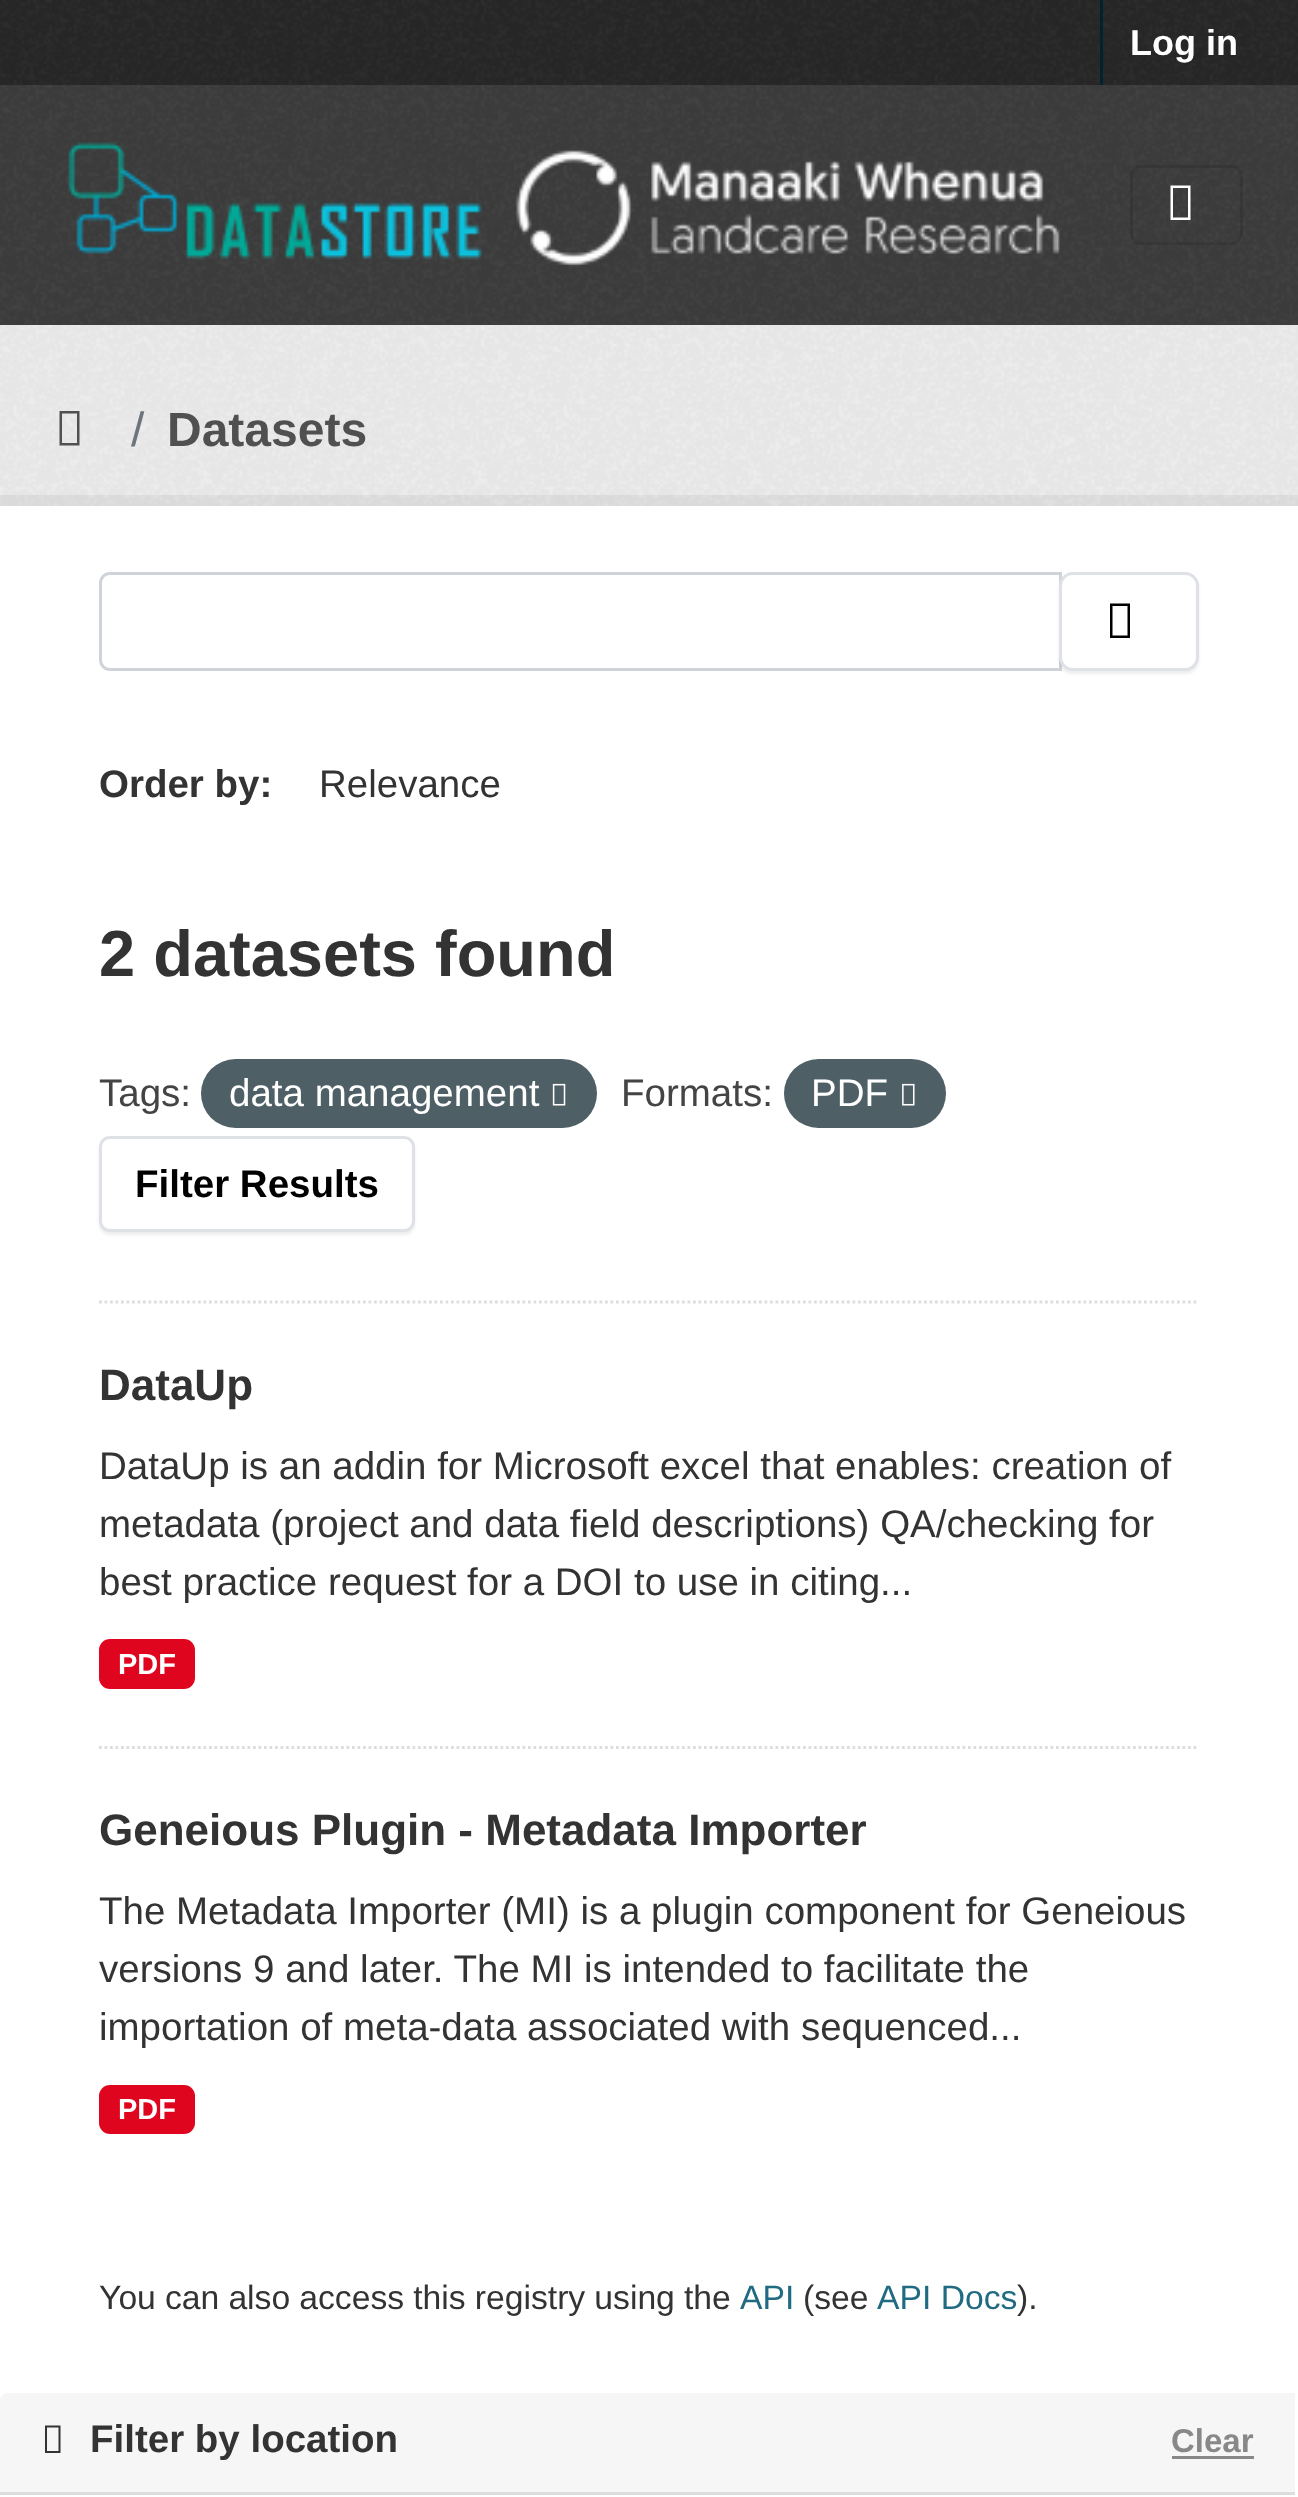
<!DOCTYPE html>
<meta charset="utf-8">
<style>body { margin: 0 } canvas { display: block }</style>
<canvas id="canvas" width="1298" height="2497"></canvas>
<img id="img1" src="img_01.png" hidden>
<img id="img2" src="img_02.png" hidden>
<img id="img3" src="img_03.png" hidden>
<img id="img4" src="img_04.png" hidden>
<img id="img5" src="img_05.png" hidden>
<img id="img6" src="img_06.png" hidden>
<script>
window.onload = function () {
	const canvas = document.getElementById("canvas");
	const ctx = canvas.getContext("2d");
	ctx.miterLimit = 4;
	ctx.fontKerning = "normal";
	function txt(s, x, y) {
		ctx.fillText(s, x, y);
	}
	function fill(x, y, w, h) {
		ctx.fillRect(x, y, w, h);
	}
	function round(x, y, w, h, r) {
		ctx.beginPath();
		ctx.roundRect(x, y, w, h, r);
		ctx.fill();
	}
	function img(id, x, y, w, h) {
		ctx.drawImage(document.getElementById(id), x, y, w, h);
	}

	ctx.fillStyle = "#282828";
	fill(0, 0, 1298, 2497);
	img("img1", 1, 0, 1297, 85);
	ctx.fillStyle = "#00232E";
	fill(1100, 0, 3, 85);
	ctx.fillStyle = "#3D3D3D";
	fill(0, 85, 1298, 240);
	img("img2", 0, 85, 1298, 239);
	img("img3", 68, 142, 992, 125);
	ctx.beginPath();
	ctx.roundRect(1131.5, 166.5, 110, 77, 9.5);
	ctx.strokeStyle = "rgba(0, 0, 0, 0.1)";
	ctx.lineWidth = 3;
	ctx.stroke();
	ctx.fillStyle = "#FFFFFF";
	ctx.beginPath();
	ctx.moveTo(1170.5, 220);
	ctx.lineTo(1170.5, 185.5);
	ctx.lineTo(1190.5, 185.5);
	ctx.lineTo(1190.5, 220);
	ctx.closePath();
	ctx.moveTo(1173, 217.5);
	ctx.lineTo(1188, 217.5);
	ctx.lineTo(1188, 188);
	ctx.lineTo(1173, 188);
	ctx.closePath();
	ctx.fill();
	ctx.fillStyle = "#EEEEEE";
	fill(0, 325, 1298, 181);
	img("img4", 0, 325, 1298, 181);
	ctx.fillStyle = "#505050";
	ctx.beginPath();
	ctx.moveTo(59.5, 445.5);
	ctx.lineTo(59.5, 411);
	ctx.lineTo(79.5, 411);
	ctx.lineTo(79.5, 445.5);
	ctx.closePath();
	ctx.moveTo(62, 443);
	ctx.lineTo(77, 443);
	ctx.lineTo(77, 413.5);
	ctx.lineTo(62, 413.5);
	ctx.closePath();
	ctx.fill();
	ctx.strokeStyle = "rgba(0, 0, 0, 0.05)";
	ctx.lineWidth = 11;
	ctx.strokeRect(-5.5, 500.5, 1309, 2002);
	ctx.fillStyle = "#FFFFFF";
	fill(0, 506, 1298, 1991);
	ctx.beginPath();
	ctx.moveTo(99, 1302);
	ctx.lineTo(1199, 1302);
	ctx.strokeStyle = "#DDDDDD";
	ctx.lineWidth = 2.8;
	ctx.setLineDash([2.75, 2.75]);
	ctx.stroke();
	ctx.beginPath();
	ctx.roundRect(100.5, 573.5, 960, 96, [9.5, 0, 0, 9.5]);
	ctx.strokeStyle = "#CED4DA";
	ctx.lineWidth = 3;
	ctx.setLineDash([]);
	ctx.stroke();
	ctx.fillStyle = "rgba(0, 0, 0, 0.07)";
	ctx.filter = "blur(1.5px)";
	ctx.beginPath();
	ctx.roundRect(1059, 575, 140, 99, 14);
	ctx.fill();
	ctx.filter = "none";
	ctx.fillStyle = "#FFFFFF";
	ctx.beginPath();
	ctx.roundRect(1060.5, 573.5, 137, 96, 12.5);
	ctx.fill();
	ctx.strokeStyle = "#DEE2E6";
	ctx.stroke();
	ctx.fillStyle = "#000000";
	ctx.beginPath();
	ctx.moveTo(1110, 638);
	ctx.lineTo(1110, 603.5);
	ctx.lineTo(1130, 603.5);
	ctx.lineTo(1130, 638);
	ctx.closePath();
	ctx.moveTo(1112.5, 635.5);
	ctx.lineTo(1127.5, 635.5);
	ctx.lineTo(1127.5, 606);
	ctx.lineTo(1112.5, 606);
	ctx.closePath();
	ctx.fill();
	ctx.fillStyle = "#4E5F65";
	round(201, 1059, 396, 69, 34.5);
	img("img5", 552, 1083, 14, 23);
	round(784, 1059, 162, 69, 34.5);
	img("img6", 902, 1083, 13, 23);
	ctx.fillStyle = "rgba(0, 0, 0, 0.07)";
	ctx.filter = "blur(1.5px)";
	ctx.beginPath();
	ctx.roundRect(99, 1139, 316, 96, 11);
	ctx.fill();
	ctx.filter = "none";
	ctx.fillStyle = "#FFFFFF";
	ctx.beginPath();
	ctx.roundRect(100.5, 1137.5, 313, 93, 9.5);
	ctx.fill();
	ctx.stroke();
	ctx.beginPath();
	ctx.moveTo(99, 1747.5);
	ctx.lineTo(1199, 1747.5);
	ctx.strokeStyle = "#DDDDDD";
	ctx.lineWidth = 2.8;
	ctx.setLineDash([2.75, 2.75]);
	ctx.stroke();
	ctx.fillStyle = "#E0051E";
	round(99, 1639, 96, 50, 11);
	round(99, 2085, 96, 49, 11);
	ctx.fillStyle = "#F6F6F6";
	ctx.beginPath();
	ctx.roundRect(0, 2393, 1295, 101, [8, 0, 0, 0]);
	ctx.fill();
	ctx.fillStyle = "#DDDDDD";
	fill(0, 2492, 1295, 3);
	ctx.fillStyle = "#333333";
	ctx.beginPath();
	ctx.moveTo(45, 2453);
	ctx.lineTo(45, 2425.5);
	ctx.lineTo(60.5, 2425.5);
	ctx.lineTo(60.5, 2453);
	ctx.closePath();
	ctx.moveTo(47, 2451);
	ctx.lineTo(58.5, 2451);
	ctx.lineTo(58.5, 2427.5);
	ctx.lineTo(47, 2427.5);
	ctx.closePath();
	ctx.fill();
	ctx.fillStyle = "#888888";
	fill(1172, 2456, 82, 3);
	ctx.font = "bold 36px Liberation Sans";
	ctx.fillStyle = "#FFFFFF";
	txt("Log in", 1130, 55);
	ctx.font = "48px Liberation Sans";
	ctx.fillStyle = "#6C757D";
	txt("/", 131, 446);
	ctx.font = "bold 48px Liberation Sans";
	ctx.fillStyle = "#505050";
	txt("Datasets", 167, 446);
	ctx.font = "bold 38.5px Liberation Sans";
	ctx.fillStyle = "#333333";
	txt("Order by:", 99, 797);
	ctx.font = "38.5px Liberation Sans";
	txt("Relevance", 319, 797);
	ctx.font = "bold 65px Liberation Sans";
	txt("2 datasets found", 99, 976);
	ctx.font = "38.5px Liberation Sans";
	ctx.fillStyle = "#444444";
	txt("Tags:", 99, 1106);
	ctx.fillStyle = "#FFFFFF";
	txt("data management", 229, 1106);
	ctx.fillStyle = "#444444";
	txt("Formats:", 621, 1106);
	ctx.fillStyle = "#FFFFFF";
	txt("PDF", 811, 1106);
	ctx.font = "bold 38.5px Liberation Sans";
	ctx.fillStyle = "#000000";
	txt("Filter Results", 135, 1197);
	ctx.font = "bold 44px Liberation Sans";
	ctx.fillStyle = "#333333";
	txt("DataUp", 99, 1400);
	ctx.font = "38.5px Liberation Sans";
	txt("DataUp is an addin for Microsoft excel that enables: creation of", 99, 1479);
	txt("metadata (project and data field descriptions) QA/checking for", 99, 1537);
	txt("best practice request for a DOI to use in citing...", 99, 1595);
	ctx.font = "bold 29px Liberation Sans";
	ctx.fillStyle = "#FFFFFF";
	txt("PDF", 118, 1674);
	ctx.font = "bold 44px Liberation Sans";
	ctx.fillStyle = "#333333";
	txt("Geneious Plugin - Metadata Importer", 99, 1845);
	ctx.font = "38.5px Liberation Sans";
	txt("The Metadata Importer (MI) is a plugin component for Geneious", 99, 1924);
	txt("versions 9 and later. The MI is intended to facilitate the", 99, 1982);
	txt("importation of meta-data associated with sequenced...", 99, 2040);
	ctx.font = "bold 29px Liberation Sans";
	ctx.fillStyle = "#FFFFFF";
	txt("PDF", 118, 2119);
	ctx.wordSpacing = "-0.25px";
	ctx.font = "33.7px Liberation Sans";
	ctx.fillStyle = "#333333";
	txt("You can also access this registry using the", 99, 2309);
	ctx.wordSpacing = "0px";
	ctx.fillStyle = "#206B82";
	txt("API", 740, 2309);
	ctx.fillStyle = "#333333";
	txt("(see", 803, 2309);
	ctx.fillStyle = "#206B82";
	txt("API Docs", 877, 2309);
	ctx.fillStyle = "#333333";
	txt(").", 1017, 2309);
	ctx.font = "bold 38.5px Liberation Sans";
	txt("Filter by location", 90, 2452);
	ctx.font = "bold 33px Liberation Sans";
	ctx.fillStyle = "#888888";
	txt("Clear", 1171, 2452);
};
</script>
